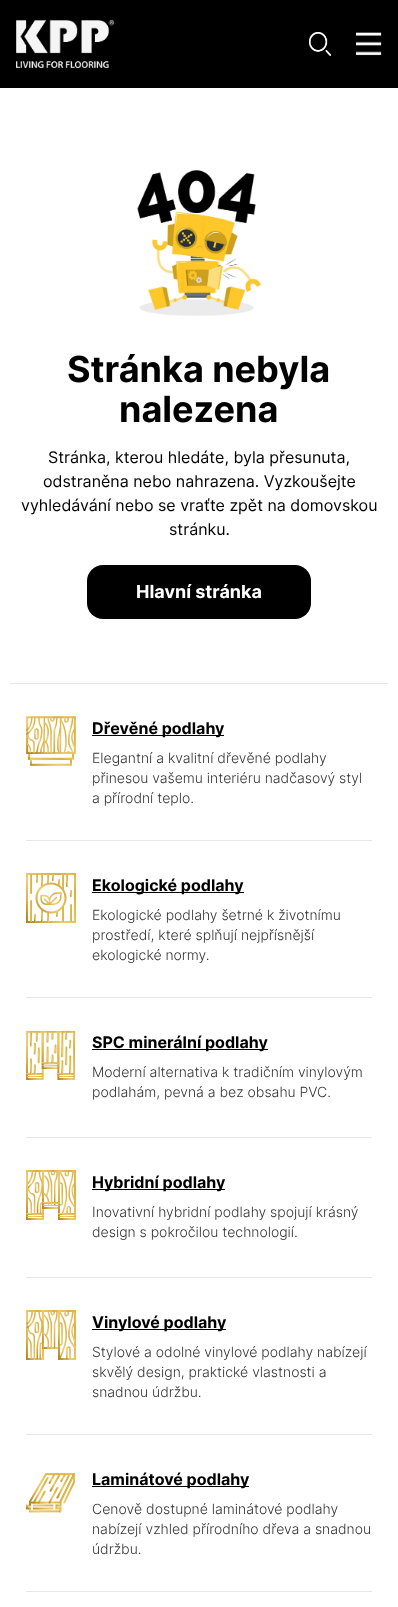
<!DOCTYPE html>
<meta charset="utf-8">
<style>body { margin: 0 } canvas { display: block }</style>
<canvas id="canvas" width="398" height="1607"></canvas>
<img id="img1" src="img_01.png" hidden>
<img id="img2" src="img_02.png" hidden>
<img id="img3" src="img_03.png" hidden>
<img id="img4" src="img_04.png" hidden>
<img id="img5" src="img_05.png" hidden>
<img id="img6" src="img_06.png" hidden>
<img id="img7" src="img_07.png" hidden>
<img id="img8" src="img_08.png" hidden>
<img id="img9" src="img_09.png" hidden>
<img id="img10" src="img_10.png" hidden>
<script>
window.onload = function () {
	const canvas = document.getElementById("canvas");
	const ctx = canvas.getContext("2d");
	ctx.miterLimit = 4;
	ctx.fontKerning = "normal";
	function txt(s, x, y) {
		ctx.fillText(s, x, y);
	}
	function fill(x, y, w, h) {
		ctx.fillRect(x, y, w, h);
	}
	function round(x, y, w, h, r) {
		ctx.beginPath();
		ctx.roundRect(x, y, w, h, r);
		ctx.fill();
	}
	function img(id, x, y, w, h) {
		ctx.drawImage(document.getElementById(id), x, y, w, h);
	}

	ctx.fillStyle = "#FFFFFF";
	fill(0, 0, 398, 1607);
	ctx.fillStyle = "#000000";
	fill(0, 0, 398, 88);
	img("img1", 16, 20, 98, 48);
	img("img2", 309, 32, 22, 24);
	img("img3", 356, 32, 26, 24);
	img("img4", 137, 170, 125, 146);
	round(87, 565, 224, 54, 16);
	ctx.fillStyle = "#E5E7EB";
	fill(10, 683, 378, 1);
	img("img5", 26, 716, 50, 50);
	ctx.fillStyle = "#000000";
	fill(92, 735, 132, 1);
	ctx.fillStyle = "#E5E7EB";
	fill(26, 840, 346, 1);
	img("img6", 26, 873, 50, 50);
	ctx.fillStyle = "#000000";
	fill(92, 892, 152, 1);
	ctx.fillStyle = "#E5E7EB";
	fill(26, 997, 346, 1);
	img("img7", 26, 1030, 49, 50);
	ctx.fillStyle = "#000000";
	fill(92, 1049, 176, 1);
	ctx.fillStyle = "#E5E7EB";
	fill(26, 1137, 346, 1);
	img("img8", 26, 1170, 50, 50);
	ctx.fillStyle = "#000000";
	fill(92, 1189, 133, 1);
	ctx.fillStyle = "#E5E7EB";
	fill(26, 1277, 346, 1);
	img("img9", 26, 1310, 50, 50);
	ctx.fillStyle = "#000000";
	fill(92, 1329, 134, 1);
	ctx.fillStyle = "#E5E7EB";
	fill(26, 1434, 346, 1);
	img("img10", 26, 1473, 49, 40);
	ctx.fillStyle = "#000000";
	fill(92, 1486, 157, 1);
	ctx.fillStyle = "#E5E7EB";
	fill(26, 1591, 346, 1);
	ctx.font = "bold 36px Inter";
	ctx.fillStyle = "#000000";
	txt("Stránka nebyla", 67, 382);
	txt("nalezena", 119, 422);
	ctx.font = "16px Inter";
	txt("Stránka, kterou hledáte, byla přesunuta,", 48, 463);
	txt("odstraněna nebo nahrazena. Vyzkoušejte", 43, 487);
	txt("vyhledávání nebo se vraťte zpět na domovskou", 21, 511);
	txt("stránku.", 169, 535);
	ctx.font = "bold 18px Inter";
	ctx.fillStyle = "#FFFFFF";
	txt("Hlavní stránka", 136, 598);
	ctx.font = "bold 16px Inter";
	ctx.fillStyle = "#000000";
	txt("Dřevěné podlahy", 92, 734);
	ctx.font = "300 14px Inter";
	ctx.fillStyle = "#333333";
	txt("Elegantní a kvalitní dřevěné podlahy", 92, 763);
	txt("přinesou vašemu interiéru nadčasový styl", 92, 783);
	txt("a přírodní teplo.", 92, 803);
	ctx.font = "bold 16px Inter";
	ctx.fillStyle = "#000000";
	txt("Ekologické podlahy", 92, 891);
	ctx.font = "300 14px Inter";
	ctx.fillStyle = "#333333";
	txt("Ekologické podlahy šetrné k životnímu", 92, 920);
	txt("prostředí, které splňují nejpřísnější", 92, 940);
	txt("ekologické normy.", 92, 960);
	ctx.font = "bold 16px Inter";
	ctx.fillStyle = "#000000";
	txt("SPC minerální podlahy", 92, 1048);
	ctx.font = "300 14px Inter";
	ctx.fillStyle = "#333333";
	txt("Moderní alternativa k tradičním vinylovým", 92, 1077);
	txt("podlahám, pevná a bez obsahu PVC.", 92, 1097);
	ctx.font = "bold 16px Inter";
	ctx.fillStyle = "#000000";
	txt("Hybridní podlahy", 92, 1188);
	ctx.font = "300 14px Inter";
	ctx.fillStyle = "#333333";
	txt("Inovativní hybridní podlahy spojují krásný", 92, 1217);
	txt("design s pokročilou technologií.", 92, 1237);
	ctx.font = "bold 16px Inter";
	ctx.fillStyle = "#000000";
	txt("Vinylové podlahy", 92, 1328);
	ctx.font = "300 14px Inter";
	ctx.fillStyle = "#333333";
	txt("Stylové a odolné vinylové podlahy nabízejí", 92, 1357);
	txt("skvělý design, praktické vlastnosti a", 92, 1377);
	txt("snadnou údržbu.", 92, 1397);
	ctx.font = "bold 16px Inter";
	ctx.fillStyle = "#000000";
	txt("Laminátové podlahy", 92, 1485);
	ctx.font = "300 14px Inter";
	ctx.fillStyle = "#333333";
	txt("Cenově dostupné laminátové podlahy", 92, 1514);
	txt("nabízejí vzhled přírodního dřeva a snadnou", 92, 1534);
	txt("údržbu.", 92, 1554);
};
</script>
